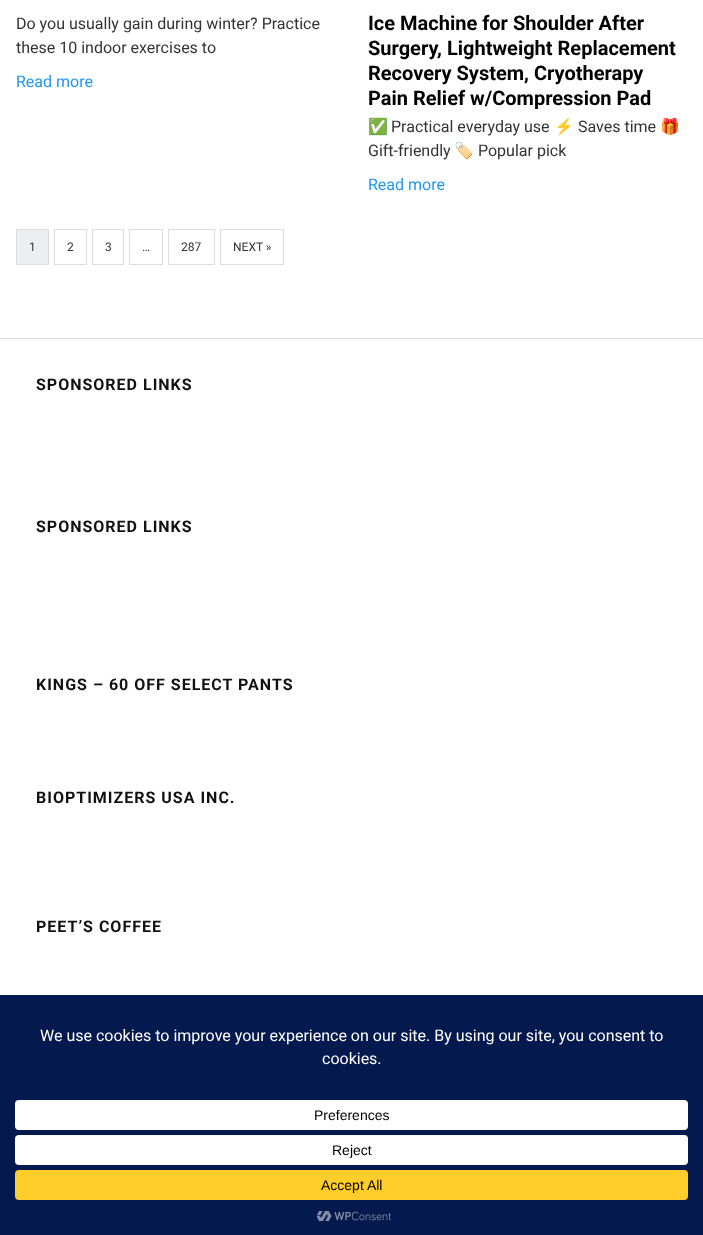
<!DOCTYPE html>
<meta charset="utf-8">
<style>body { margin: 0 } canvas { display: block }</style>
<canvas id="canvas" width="703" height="1235"></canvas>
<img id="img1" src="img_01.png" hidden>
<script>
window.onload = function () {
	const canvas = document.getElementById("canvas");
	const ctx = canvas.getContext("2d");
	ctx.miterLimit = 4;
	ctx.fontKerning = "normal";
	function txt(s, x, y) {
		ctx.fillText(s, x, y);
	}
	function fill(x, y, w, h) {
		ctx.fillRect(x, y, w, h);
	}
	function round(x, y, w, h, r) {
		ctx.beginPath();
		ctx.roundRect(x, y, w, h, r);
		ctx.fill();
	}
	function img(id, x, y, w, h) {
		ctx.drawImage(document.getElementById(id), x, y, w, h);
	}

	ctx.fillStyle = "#FFFFFF";
	fill(0, 0, 703, 1235);
	ctx.fillStyle = "#ECEEEF";
	ctx.beginPath();
	ctx.rect(16.5, 229.5, 32, 35);
	ctx.fill();
	ctx.strokeStyle = "#DDDDDD";
	ctx.stroke();
	ctx.strokeRect(54.5, 229.5, 32, 35);
	ctx.strokeRect(92.5, 229.5, 31, 35);
	ctx.strokeRect(129.5, 229.5, 33, 35);
	ctx.strokeRect(168.5, 229.5, 46, 35);
	ctx.strokeRect(220.5, 229.5, 63, 35);
	ctx.fillStyle = "#DBDBDB";
	fill(0, 338, 703, 1);
	ctx.fillStyle = "#04194E";
	fill(0, 995, 703, 240);
	ctx.fillStyle = "#FFFFFF";
	round(15, 1100, 673, 30, 4);
	round(15, 1135, 673, 30, 4);
	ctx.fillStyle = "#FFCD2A";
	round(15, 1170, 673, 30, 4);
	img("img1", 316, 1211, 75, 11);
	ctx.font = "16px Roboto";
	ctx.fillStyle = "#333333";
	txt("Do you usually gain during winter? Practice", 16, 29);
	txt("these 10 indoor exercises to", 16, 53);
	ctx.fillStyle = "#2196F3";
	txt("Read more", 16, 87);
	ctx.font = "bold 20px Roboto";
	ctx.fillStyle = "#000000";
	txt("Ice Machine for Shoulder After", 368, 30);
	txt("Surgery, Lightweight Replacement", 368, 55);
	txt("Recovery System, Cryotherapy", 368, 80);
	txt("Pain Relief w/Compression Pad", 368, 105);
	ctx.font = "16px Noto Color Emoji";
	ctx.fillStyle = "#333333";
	txt("✅", 368, 132);
	ctx.font = "16px Roboto";
	txt("Practical everyday use", 391, 132);
	ctx.font = "16px Noto Color Emoji";
	txt("⚡", 554, 132);
	ctx.font = "16px Roboto";
	txt("Saves time", 578, 132);
	ctx.font = "16px Noto Color Emoji";
	txt("🎁", 660, 132);
	ctx.font = "16px Roboto";
	txt("Gift-friendly", 368, 156);
	ctx.font = "16px Noto Color Emoji";
	txt("🏷️", 454, 156);
	ctx.font = "16px Roboto";
	txt("Popular pick", 478, 156);
	ctx.fillStyle = "#2196F3";
	txt("Read more", 368, 190);
	ctx.font = "12px Roboto";
	ctx.fillStyle = "#333333";
	txt("1", 29, 251);
	txt("2", 67, 251);
	txt("3", 105, 251);
	txt("…", 142, 251);
	txt("287", 181, 251);
	txt("NEXT »", 233, 251);
	ctx.letterSpacing = "1px";
	ctx.font = "bold 16px Roboto";
	ctx.fillStyle = "#111111";
	txt("SPONSORED LINKS", 36, 390);
	txt("SPONSORED LINKS", 36, 532);
	txt("KINGS – 60 OFF SELECT PANTS", 36, 690);
	txt("BIOPTIMIZERS USA INC.", 36, 803);
	txt("PEET’S COFFEE", 36, 932);
	ctx.letterSpacing = "0px";
	ctx.font = "16px Roboto";
	ctx.fillStyle = "#FFFFFF";
	txt("We use cookies to improve your experience on our site. By using our site, you consent to", 40, 1041);
	txt("cookies.", 322, 1064);
	ctx.font = "14px Liberation Sans";
	ctx.fillStyle = "#000000";
	txt("Preferences", 314, 1120);
	txt("Reject", 332, 1155);
	txt("Accept All", 321, 1190);
};
</script>
